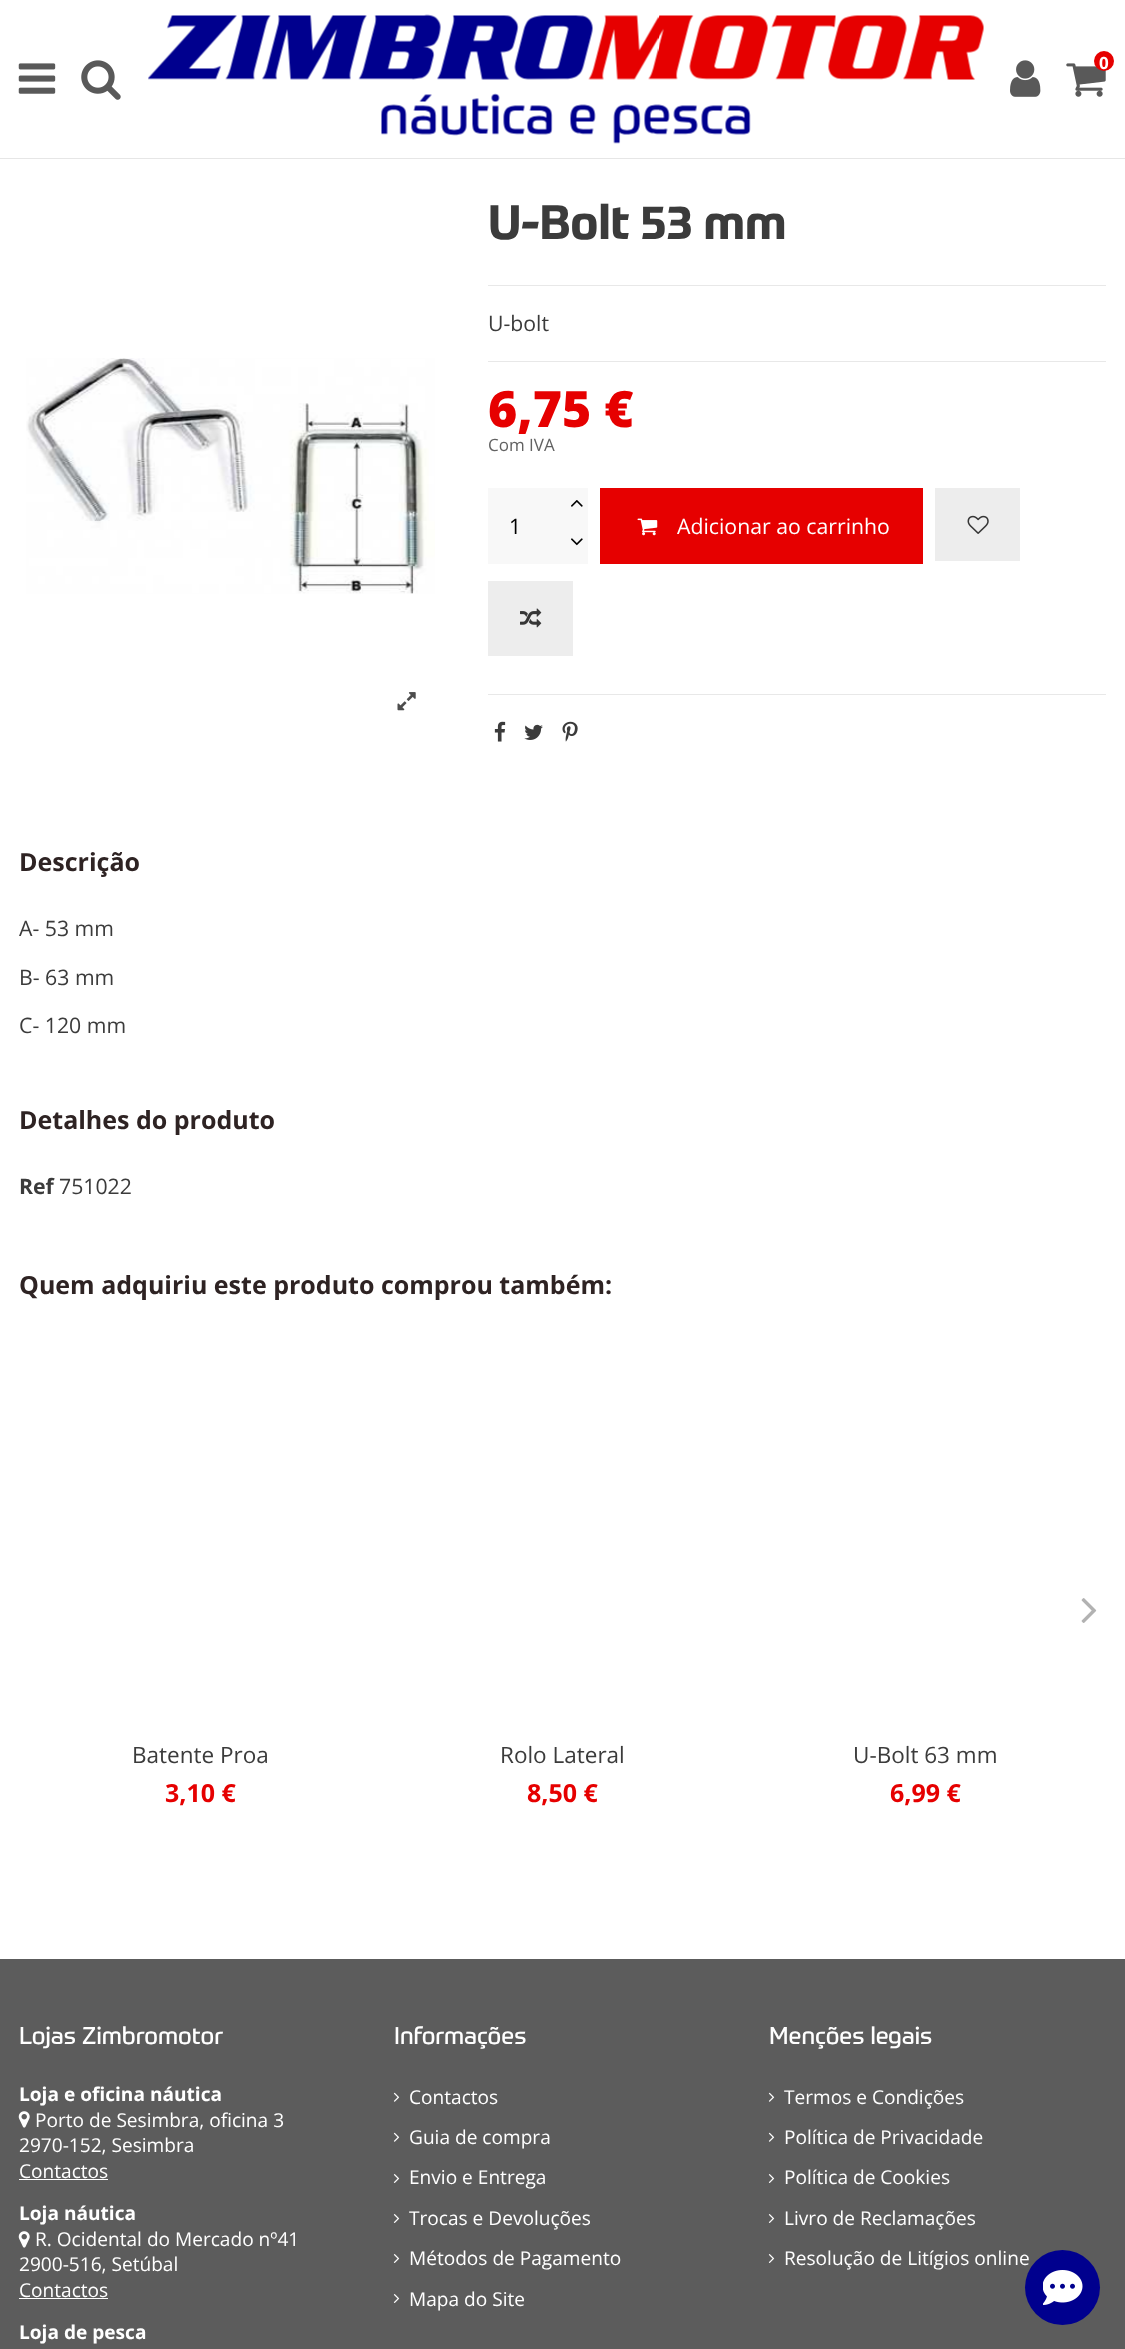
<!DOCTYPE html>
<meta charset="utf-8">
<style>body { margin: 0 } canvas { display: block }</style>
<canvas id="canvas" width="1125" height="2349"></canvas>
<img id="img1" src="img_01.png" hidden>
<img id="img2" src="img_02.png" hidden>
<img id="img3" src="img_03.png" hidden>
<img id="img4" src="img_04.png" hidden>
<img id="img5" src="img_05.png" hidden>
<img id="img6" src="img_06.png" hidden>
<img id="img7" src="img_07.png" hidden>
<img id="img8" src="img_08.png" hidden>
<img id="img9" src="img_09.png" hidden>
<img id="img10" src="img_10.png" hidden>
<img id="img11" src="img_11.png" hidden>
<img id="img12" src="img_12.png" hidden>
<img id="img13" src="img_13.png" hidden>
<img id="img14" src="img_14.png" hidden>
<img id="img15" src="img_15.png" hidden>
<img id="img16" src="img_16.png" hidden>
<img id="img17" src="img_17.png" hidden>
<img id="img18" src="img_18.png" hidden>
<img id="img19" src="img_19.png" hidden>
<img id="img20" src="img_20.png" hidden>
<script>
window.onload = function () {
	const canvas = document.getElementById("canvas");
	const ctx = canvas.getContext("2d");
	ctx.miterLimit = 4;
	ctx.fontKerning = "normal";
	function txt(s, x, y) {
		ctx.fillText(s, x, y);
	}
	function fill(x, y, w, h) {
		ctx.fillRect(x, y, w, h);
	}
	function img(id, x, y, w, h) {
		ctx.drawImage(document.getElementById(id), x, y, w, h);
	}

	ctx.fillStyle = "#FFFFFF";
	fill(0, 0, 1125, 2349);
	ctx.fillStyle = "#E6E6E6";
	fill(0, 158, 1125, 1);
	img("img1", 18, 63, 38, 31);
	img("img2", 81, 60, 40, 40);
	img("img3", 148, 14, 836, 130);
	img("img4", 1010, 60, 31, 37);
	img("img5", 1066, 63, 40, 34);
	ctx.fillStyle = "#E60000";
	ctx.beginPath();
	ctx.arc(1104, 61, 10, 0, Math.PI * 2);
	ctx.fill();
	img("img6", 26, 358, 409, 236);
	img("img7", 397, 692, 19, 19);
	ctx.fillStyle = "#E8E8E8";
	fill(488, 285, 618, 1);
	fill(488, 361, 618, 1);
	ctx.fillStyle = "#F8F8F8";
	fill(488, 488, 75, 76);
	fill(563, 488, 25, 76);
	img("img8", 571, 500, 12, 7);
	img("img9", 571, 538, 12, 8);
	ctx.fillStyle = "#E60000";
	fill(600, 488, 323, 76);
	img("img10", 637, 518, 21, 18);
	ctx.fillStyle = "#EDEDED";
	fill(935, 488, 85, 73);
	img("img11", 967, 515, 22, 19);
	fill(488, 581, 85, 75);
	img("img12", 520, 608, 22, 20);
	ctx.fillStyle = "#E8E8E8";
	fill(488, 694, 618, 1);
	img("img13", 494, 721, 12, 21);
	img("img14", 524, 724, 19, 16);
	img("img15", 562, 721, 16, 21);
	img("img16", 1081, 1598, 16, 25);
	ctx.fillStyle = "#5C5C5C";
	fill(0, 1959, 1125, 390);
	img("img17", 18, 2111, 12, 17);
	ctx.fillStyle = "#FFFFFF";
	fill(19, 2179, 89, 1);
	img("img17", 18, 2231, 12, 17);
	fill(19, 2298, 89, 1);
	img("img18", 393, 2092, 7, 10);
	img("img18", 393, 2132, 7, 10);
	img("img19", 393, 2174, 7, 9);
	img("img19", 393, 2214, 7, 9);
	img("img19", 393, 2254, 7, 9);
	img("img19", 393, 2294, 7, 9);
	img("img18", 768, 2092, 7, 10);
	img("img18", 768, 2132, 7, 10);
	img("img19", 768, 2174, 7, 9);
	img("img19", 768, 2214, 7, 9);
	img("img19", 768, 2254, 7, 9);
	ctx.font = "bold 17px Open Sans";
	txt("0", 1099, 69);
	ctx.font = "bold 47.5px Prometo";
	ctx.fillStyle = "#3B3B3B";
	txt("U-Bolt 53 mm", 488, 239);
	ctx.font = "21.25px Open Sans";
	txt("U-bolt", 488, 331);
	ctx.font = "800 50px Open Sans";
	ctx.fillStyle = "#E60000";
	txt("6,75 €", 488, 427);
	ctx.font = "17px Open Sans";
	ctx.fillStyle = "#626262";
	txt("Com IVA", 488, 451);
	ctx.font = "21.25px Open Sans";
	ctx.fillStyle = "#000000";
	txt("1", 509, 534);
	ctx.fillStyle = "#FFFFFF";
	txt("Adicionar ao carrinho", 677, 534);
	ctx.font = "bold 25px Open Sans";
	ctx.fillStyle = "#2E2323";
	txt("Descrição", 19, 871);
	ctx.font = "21.25px Open Sans";
	ctx.fillStyle = "#3B3B3B";
	txt("A- 53 mm", 19, 936);
	txt("B- 63 mm", 19, 985);
	txt("C- 120 mm", 19, 1033);
	ctx.font = "bold 25px Open Sans";
	ctx.fillStyle = "#2E2323";
	txt("Detalhes do produto", 19, 1129);
	ctx.font = "bold 21.25px Open Sans";
	ctx.fillStyle = "#3B3B3B";
	txt("Ref", 19, 1194);
	ctx.font = "21.25px Open Sans";
	txt("751022", 59, 1194);
	ctx.font = "bold 25px Open Sans";
	ctx.fillStyle = "#2E2323";
	txt("Quem adquiriu este produto comprou também:", 19, 1294);
	ctx.font = "22.5px Open Sans";
	ctx.fillStyle = "#3B3B3B";
	txt("Batente Proa", 132, 1763);
	ctx.font = "bold 25px Open Sans";
	ctx.fillStyle = "#E60000";
	txt("3,10 €", 165, 1802);
	ctx.font = "22.5px Open Sans";
	ctx.fillStyle = "#3B3B3B";
	txt("Rolo Lateral", 500, 1763);
	ctx.font = "bold 25px Open Sans";
	ctx.fillStyle = "#E60000";
	txt("8,50 €", 527, 1802);
	ctx.font = "22.5px Open Sans";
	ctx.fillStyle = "#3B3B3B";
	txt("U-Bolt 63 mm", 853, 1763);
	ctx.font = "bold 25px Open Sans";
	ctx.fillStyle = "#E60000";
	txt("6,99 €", 890, 1802);
	ctx.font = "23.75px Prometo";
	ctx.fillStyle = "#FFFFFF";
	txt("Lojas Zimbromotor", 19, 2044);
	ctx.font = "bold 19.1px Open Sans";
	txt("Loja e oficina náutica", 19, 2101);
	ctx.font = "19.1px Open Sans";
	txt("Porto de Sesimbra, oficina 3", 35, 2127);
	txt("2970-152, Sesimbra", 19, 2152);
	txt("Contactos", 19, 2178);
	ctx.font = "bold 19.1px Open Sans";
	txt("Loja náutica", 19, 2220);
	ctx.font = "19.1px Open Sans";
	txt("R. Ocidental do Mercado nº41", 35, 2246);
	txt("2900-516, Setúbal", 19, 2271);
	txt("Contactos", 19, 2297);
	ctx.font = "bold 19.1px Open Sans";
	txt("Loja de pesca", 19, 2339);
	ctx.font = "23.75px Prometo";
	txt("Informações", 394, 2044);
	ctx.font = "19.1px Open Sans";
	txt("Contactos", 409, 2104);
	txt("Guia de compra", 409, 2144);
	txt("Envio e Entrega", 409, 2184);
	txt("Trocas e Devoluções", 409, 2225);
	txt("Métodos de Pagamento", 409, 2265);
	txt("Mapa do Site", 409, 2306);
	ctx.font = "23.75px Prometo";
	txt("Menções legais", 769, 2044);
	ctx.font = "19.1px Open Sans";
	txt("Termos e Condições", 784, 2104);
	txt("Política de Privacidade", 784, 2144);
	txt("Política de Cookies", 784, 2184);
	txt("Livro de Reclamações", 784, 2225);
	txt("Resolução de Litígios online", 784, 2265);
	ctx.fillStyle = "#00008E";
	ctx.beginPath();
	ctx.arc(1062.5, 2287.5, 37.5, 0, Math.PI * 2);
	ctx.fill();
	img("img20", 1043, 2270, 40, 35);
};
</script>
